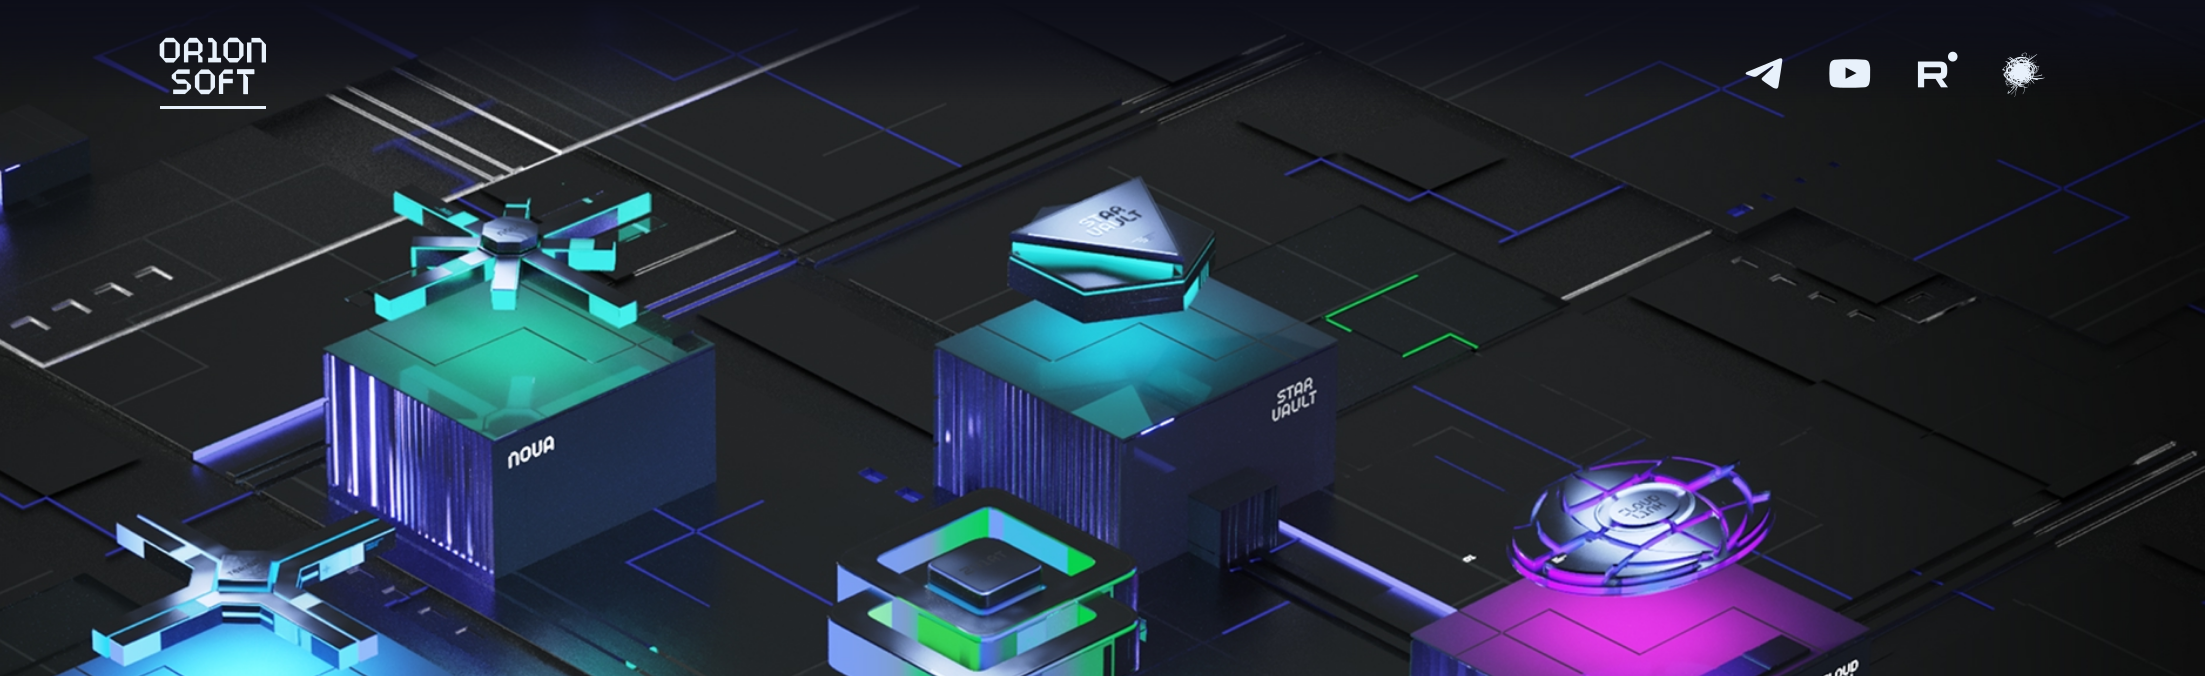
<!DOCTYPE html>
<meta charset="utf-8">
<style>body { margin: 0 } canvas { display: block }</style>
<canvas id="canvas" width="2205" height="676"></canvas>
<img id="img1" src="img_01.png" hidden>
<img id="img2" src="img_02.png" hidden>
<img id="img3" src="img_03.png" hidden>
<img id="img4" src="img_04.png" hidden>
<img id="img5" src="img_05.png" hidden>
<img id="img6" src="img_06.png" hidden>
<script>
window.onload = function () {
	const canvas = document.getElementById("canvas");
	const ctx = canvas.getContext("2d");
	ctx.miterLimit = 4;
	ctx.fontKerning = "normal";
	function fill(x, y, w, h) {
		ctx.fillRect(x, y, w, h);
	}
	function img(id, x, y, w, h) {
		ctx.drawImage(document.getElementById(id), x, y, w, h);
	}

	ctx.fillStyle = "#FFFFFF";
	fill(0, 0, 2205, 676);
	img("img1", 0, 0, 2205, 676);
	img("img2", 159, 37, 107, 72);
	img("img3", 1745, 58, 38, 31);
	img("img4", 1829, 59, 42, 29);
	img("img5", 1917, 51, 41, 37);
	img("img6", 2002, 52, 43, 45);
};
</script>
